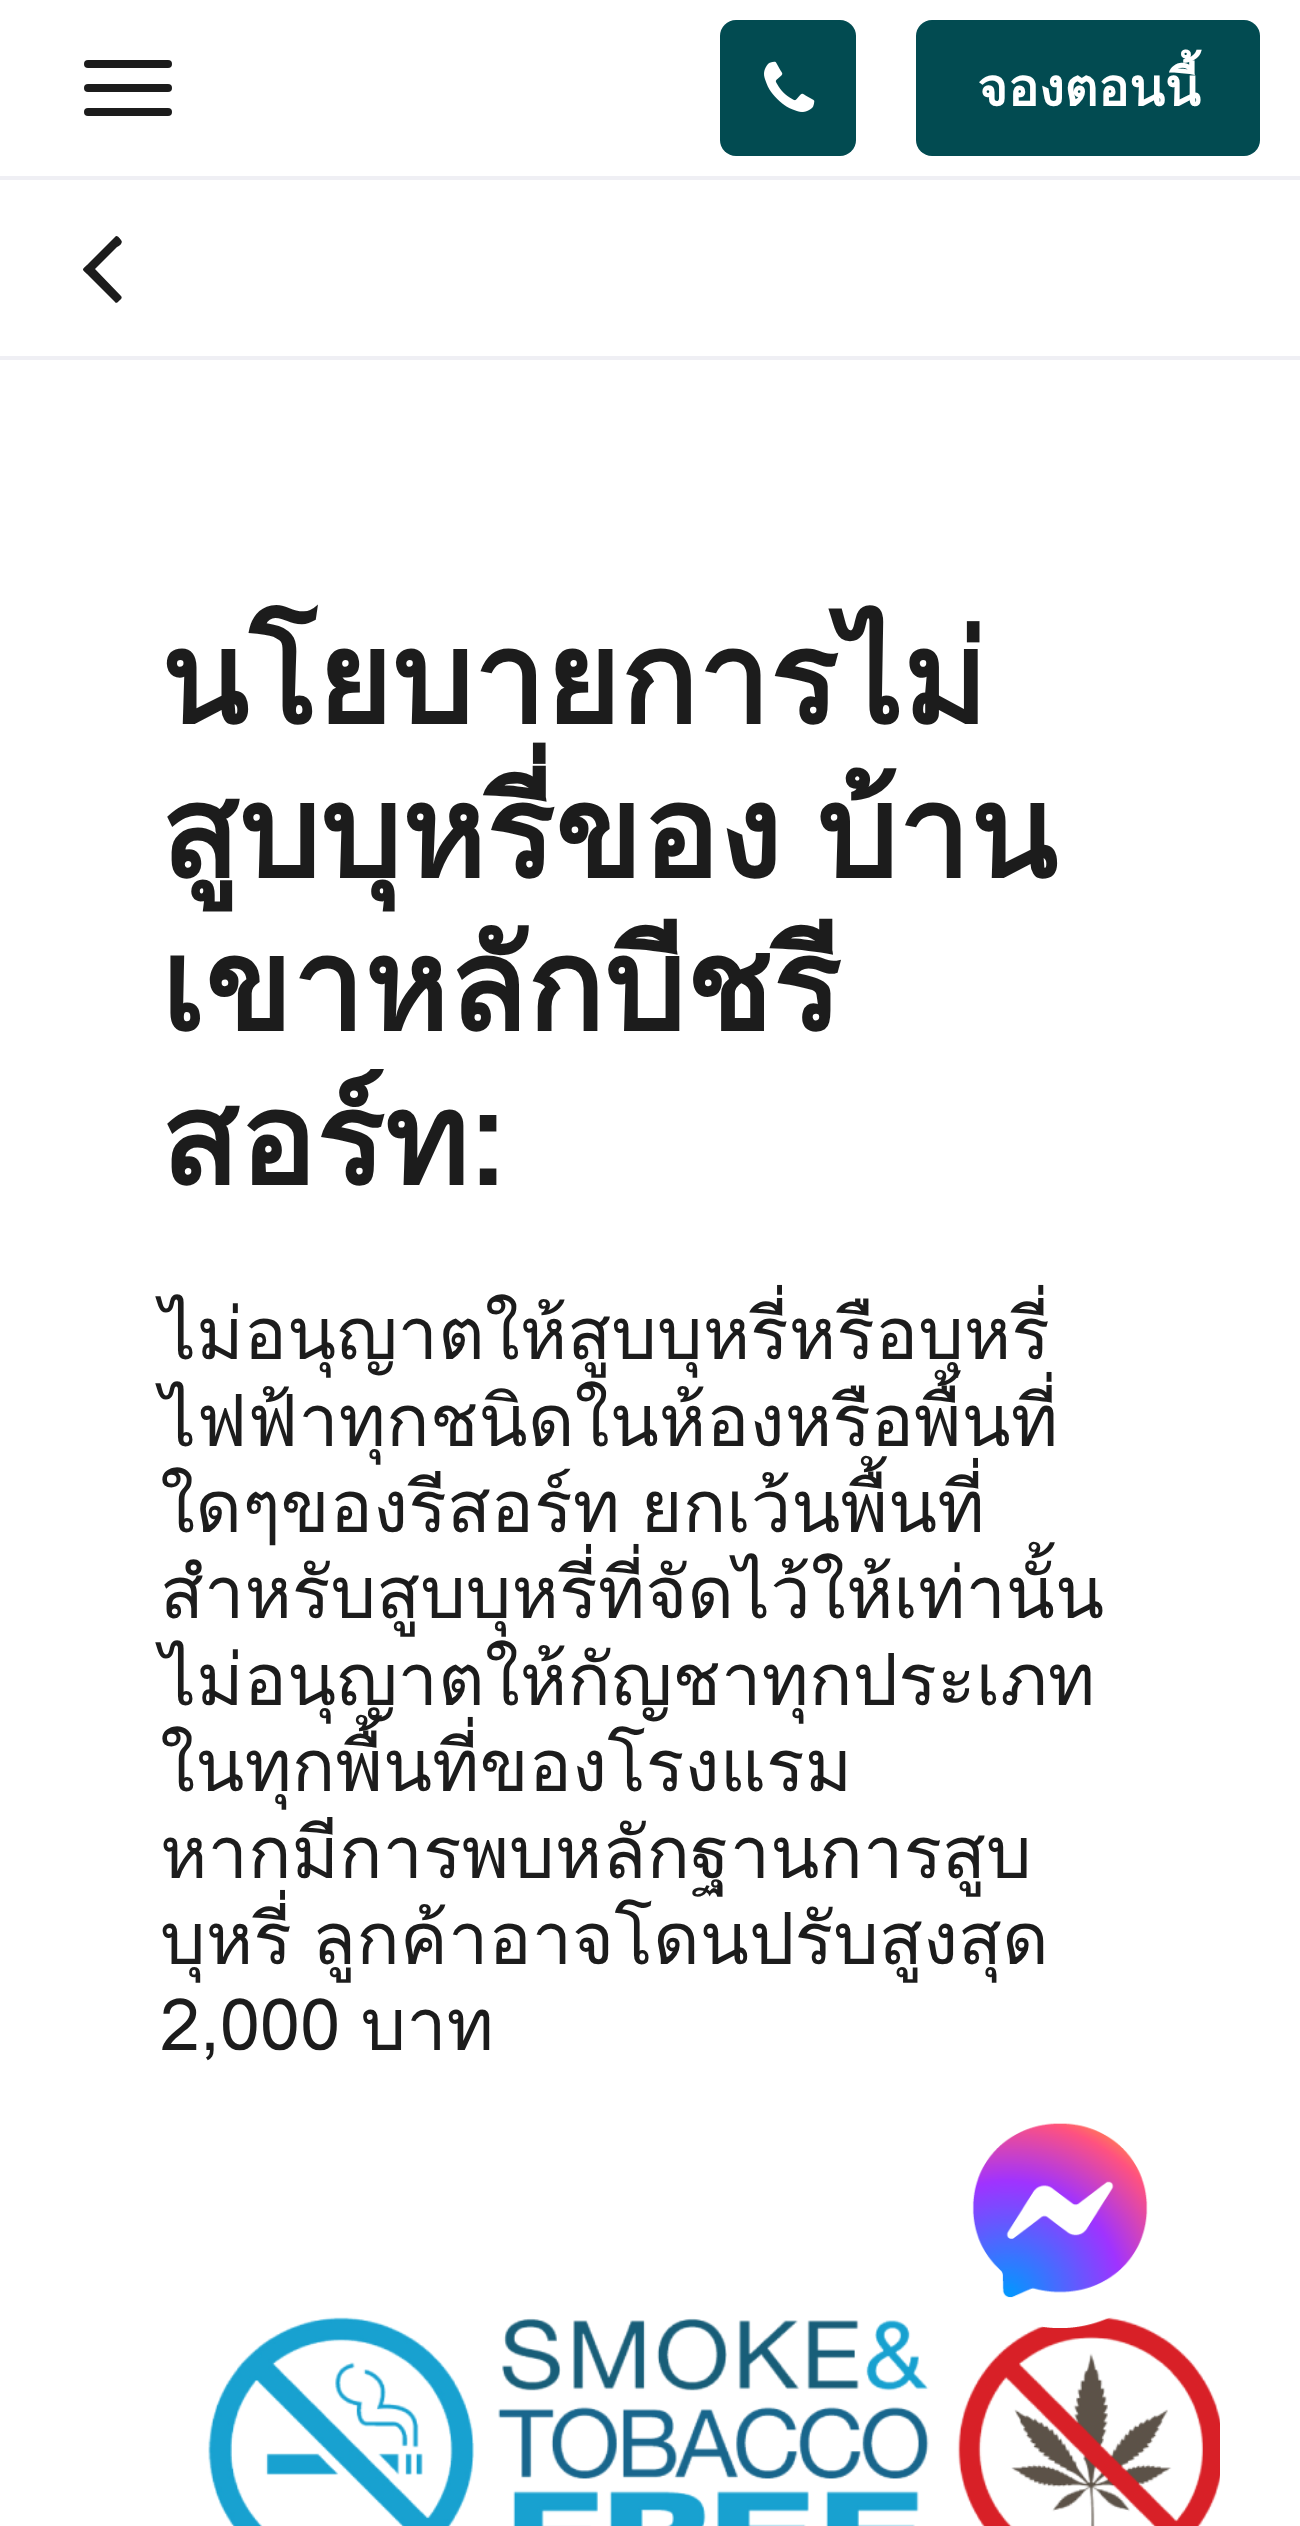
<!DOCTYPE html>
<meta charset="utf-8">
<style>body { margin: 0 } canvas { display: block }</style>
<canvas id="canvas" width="1300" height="2526"></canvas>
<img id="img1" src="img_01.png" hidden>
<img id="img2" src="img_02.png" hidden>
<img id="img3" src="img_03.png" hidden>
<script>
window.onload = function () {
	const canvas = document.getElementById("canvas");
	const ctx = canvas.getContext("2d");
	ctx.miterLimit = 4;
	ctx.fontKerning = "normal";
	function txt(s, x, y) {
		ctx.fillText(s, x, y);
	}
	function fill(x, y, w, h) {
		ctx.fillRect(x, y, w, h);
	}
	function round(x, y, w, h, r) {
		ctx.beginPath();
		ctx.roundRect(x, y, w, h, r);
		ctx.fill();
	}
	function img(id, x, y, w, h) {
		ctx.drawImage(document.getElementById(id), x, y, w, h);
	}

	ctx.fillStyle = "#EFEFF4";
	fill(0, 0, 1300, 2526);
	ctx.fillStyle = "#FFFFFF";
	fill(0, 0, 1300, 176);
	ctx.fillStyle = "#1C1C1C";
	round(84, 60, 88, 8, 4);
	round(84, 84, 88, 8, 4);
	round(84, 108, 88, 8, 4);
	ctx.fillStyle = "#024B51";
	round(720, 20, 136, 136, 16);
	img("img1", 764, 61, 51, 51);
	round(916, 20, 344, 136, 16);
	ctx.fillStyle = "#FFFFFF";
	fill(0, 180, 1300, 176);
	ctx.fillStyle = "#1C1C1C";
	ctx.beginPath();
	ctx.moveTo(121, 240);
	ctx.bezierCurveTo(124, 243, 118, 247, 117, 247);
	ctx.lineTo(95, 269);
	ctx.lineTo(121, 296);
	ctx.bezierCurveTo(123, 298, 120, 300, 119, 301);
	ctx.bezierCurveTo(118, 302, 116, 304, 115, 302);
	ctx.lineTo(89, 276);
	ctx.bezierCurveTo(81, 268, 81, 271, 89, 263);
	ctx.lineTo(115, 237);
	ctx.bezierCurveTo(117, 234, 120, 239, 121, 240);
	ctx.closePath();
	ctx.fill();
	ctx.fillStyle = "#FFFFFF";
	fill(0, 360, 1300, 2166);
	img("img2", 208, 2317, 1012, 209);
	img("img3", 972, 2123, 176, 205);
	ctx.font = "bold 52px Loma";
	txt("จองตอนนี้", 977, 106);
	ctx.font = "bold 128px Loma";
	ctx.fillStyle = "#1C1C1C";
	txt("นโยบายการไม่", 160, 724);
	ctx.wordSpacing = "-8px";
	txt("สูบบุหรี่ของ บ้าน", 160, 878);
	ctx.wordSpacing = "0px";
	txt("เขาหลักบีชรี", 160, 1031);
	txt("สอร์ท:", 160, 1185);
	ctx.font = "72px Loma";
	txt("ไม่อนุญาตให้สูบบุหรี่หรือบุหรี่", 160, 1359);
	txt("ไฟฟ้าทุกชนิดในห้องหรือพื้นที่", 160, 1446);
	ctx.wordSpacing = "-4px";
	txt("ใดๆของรีสอร์ท ยกเว้นพื้นที่", 160, 1532);
	ctx.wordSpacing = "0px";
	txt("สำหรับสูบบุหรี่ที่จัดไว้ให้เท่านั้น", 160, 1618);
	txt("ไม่อนุญาตให้กัญชาทุกประเภท", 160, 1705);
	txt("ในทุกพื้นที่ของโรงแรม", 160, 1791);
	txt("หากมีการพบหลักฐานการสูบ", 160, 1878);
	ctx.wordSpacing = "-4px";
	txt("บุหรี่ ลูกค้าอาจโดนปรับสูงสุด", 160, 1964);
	txt("2,000 บาท", 160, 2050);
};
</script>
